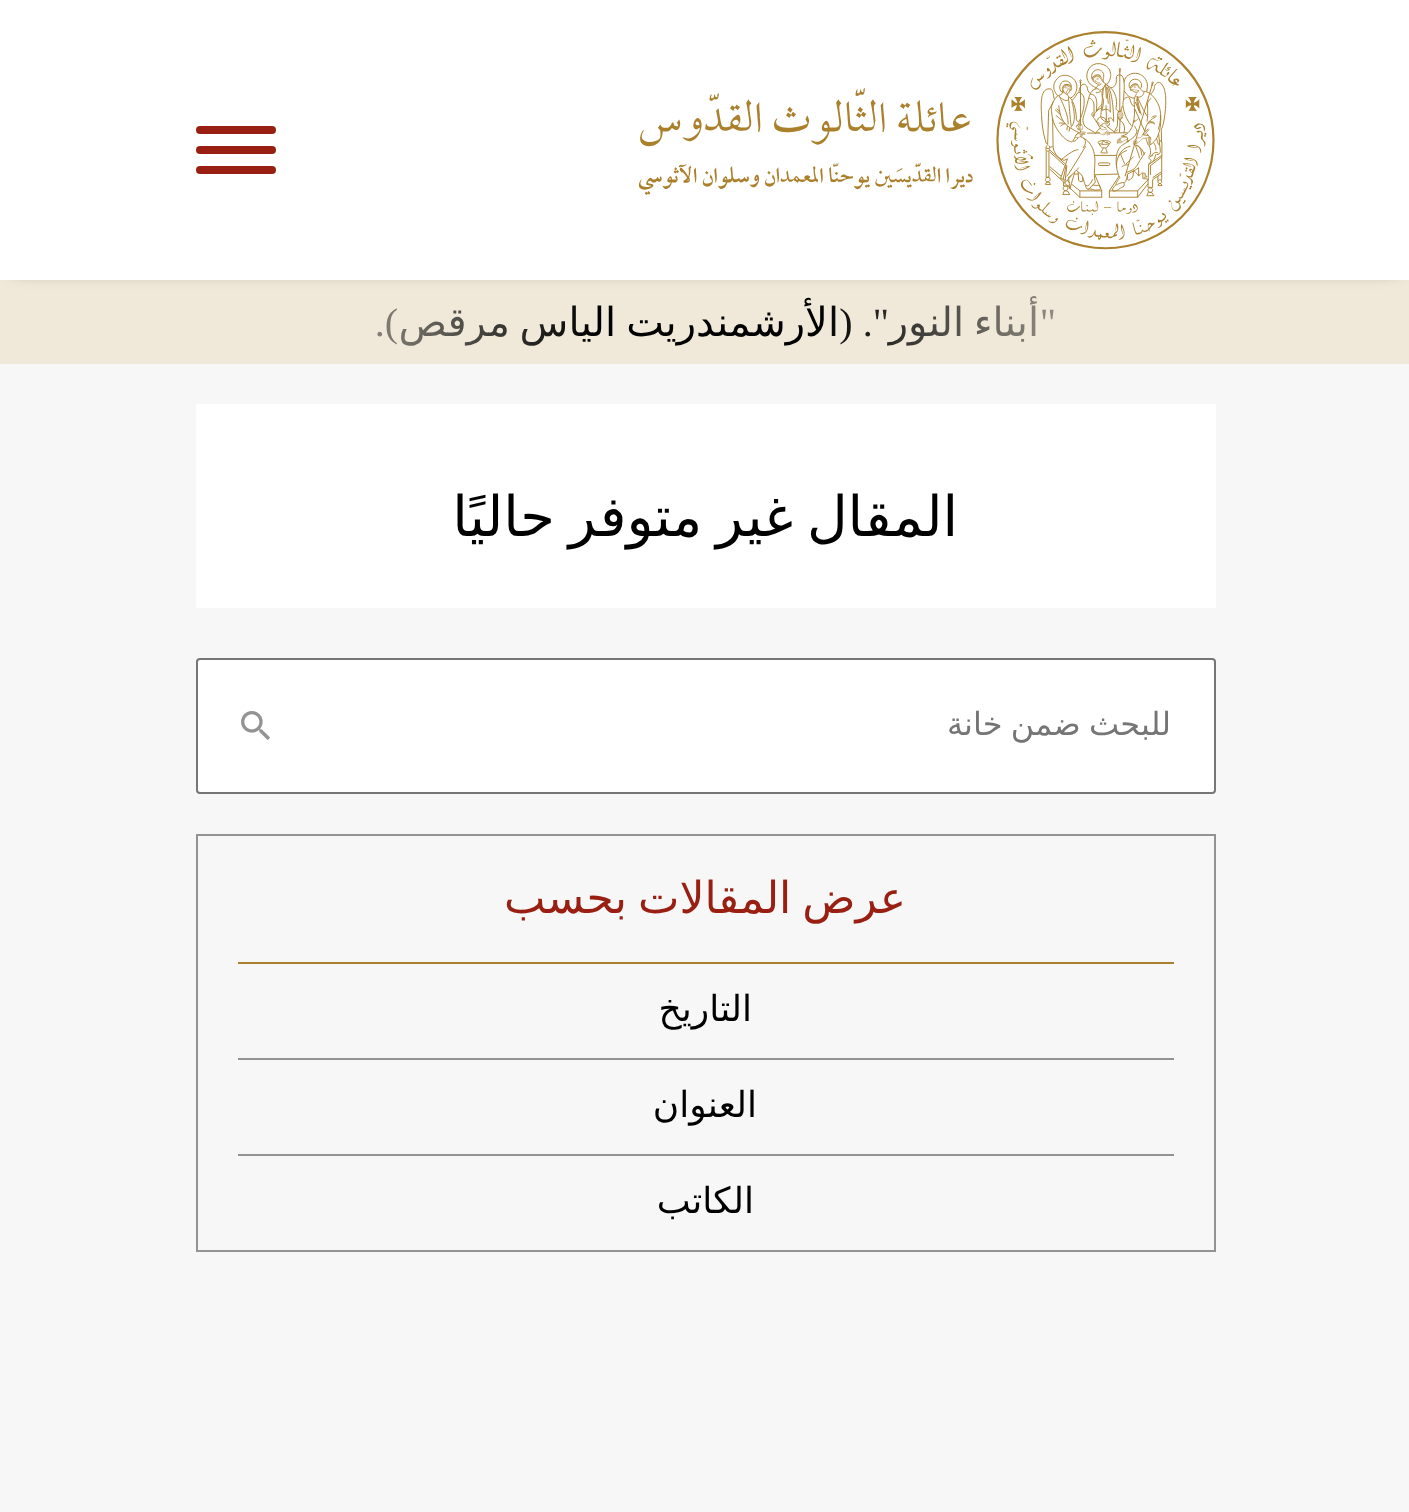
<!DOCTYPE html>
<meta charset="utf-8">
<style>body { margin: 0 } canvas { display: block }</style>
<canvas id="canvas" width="1409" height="1512"></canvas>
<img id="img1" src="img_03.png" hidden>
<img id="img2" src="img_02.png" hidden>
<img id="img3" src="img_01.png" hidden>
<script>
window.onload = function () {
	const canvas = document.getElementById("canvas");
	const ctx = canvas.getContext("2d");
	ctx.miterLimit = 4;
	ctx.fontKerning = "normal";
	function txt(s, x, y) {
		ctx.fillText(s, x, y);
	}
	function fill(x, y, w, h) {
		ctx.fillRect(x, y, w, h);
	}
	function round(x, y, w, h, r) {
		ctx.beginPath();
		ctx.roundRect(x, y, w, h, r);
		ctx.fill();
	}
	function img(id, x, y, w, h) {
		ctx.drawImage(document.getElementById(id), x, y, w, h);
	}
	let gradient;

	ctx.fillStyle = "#F7F7F7";
	fill(0, 0, 1409, 1512);
	ctx.fillStyle = "#F0E9D9";
	fill(0, 280, 1409, 84);
	ctx.fillStyle = "#FFFFFF";
	fill(196, 404, 1020, 204);
	ctx.beginPath();
	ctx.roundRect(197, 659, 1018, 134, 3);
	ctx.fill();
	ctx.strokeStyle = "#767676";
	ctx.lineWidth = 2;
	ctx.stroke();
	img("img1", 241, 711, 29, 29);
	ctx.strokeStyle = "#939393";
	ctx.strokeRect(197, 835, 1018, 416);
	ctx.fillStyle = "#AA802D";
	fill(238, 962, 936, 2);
	ctx.fillStyle = "#939393";
	fill(238, 1058, 936, 2);
	fill(238, 1154, 936, 2);
	ctx.direction = "rtl";
	ctx.font = "40px Liberation Serif";
	ctx.fillStyle = "#000000";
	txt("\"", 1056, 336);
	ctx.font = "40px DejaVu Sans";
	txt("أبناء", 1039, 336);
	ctx.font = "40px Liberation Serif";
	txt("\". (", 889, 336);
	ctx.font = "40px DejaVu Sans";
	txt("النور", 964, 336);
	txt("الأرشمندريت", 839, 336);
	txt("الياس", 616, 336);
	txt("مرقص", 510, 336);
	ctx.font = "40px Liberation Serif";
	txt(").", 398, 336);
	gradient = ctx.createLinearGradient(1215, 322, 815, 322);
	gradient.addColorStop(0, "#F0E9D9");
	gradient.addColorStop(1, "rgba(240, 233, 217, 0)");
	ctx.fillStyle = gradient;
	fill(831, 296, 223, 50);
	ctx.fillStyle = "rgba(0, 0, 0, 0.75)";
	ctx.filter = "blur(10px)";
	ctx.beginPath();
	ctx.rect(14, 14, 1382, 252);
	ctx.fill();
	ctx.filter = "none";
	ctx.fillStyle = "#FFFFFF";
	fill(0, 0, 1409, 280);
	ctx.fillStyle = "#981F12";
	round(196, 166, 80, 8, 4);
	round(196, 126, 80, 8, 4);
	round(196, 146, 80, 8, 4);
	img("img2", 638, 87, 335, 108);
	img("img3", 996, 31, 219, 219);
	gradient = ctx.createLinearGradient(196, 322, 596, 322);
	gradient.addColorStop(0, "#F0E9D9");
	gradient.addColorStop(1, "rgba(240, 233, 217, 0)");
	ctx.fillStyle = gradient;
	fill(376, 305, 211, 41);
	ctx.wordSpacing = "-4px";
	ctx.font = "56px DejaVu Sans";
	ctx.fillStyle = "#000000";
	txt("المقال غير متوفر حاليًا", 958, 536);
	ctx.wordSpacing = "-2px";
	ctx.font = "32px DejaVu Sans";
	ctx.fillStyle = "#757575";
	txt("للبحث ضمن خانة", 1171, 735);
	ctx.wordSpacing = "-3px";
	ctx.font = "44px DejaVu Sans";
	ctx.fillStyle = "#981F12";
	txt("عرض المقالات بحسب", 906, 913);
	ctx.wordSpacing = "0px";
	ctx.font = "36px DejaVu Sans";
	ctx.fillStyle = "#000000";
	txt("التاريخ", 752, 1021);
	txt("العنوان", 757, 1117);
	txt("الكاتب", 754, 1213);
};
</script>
